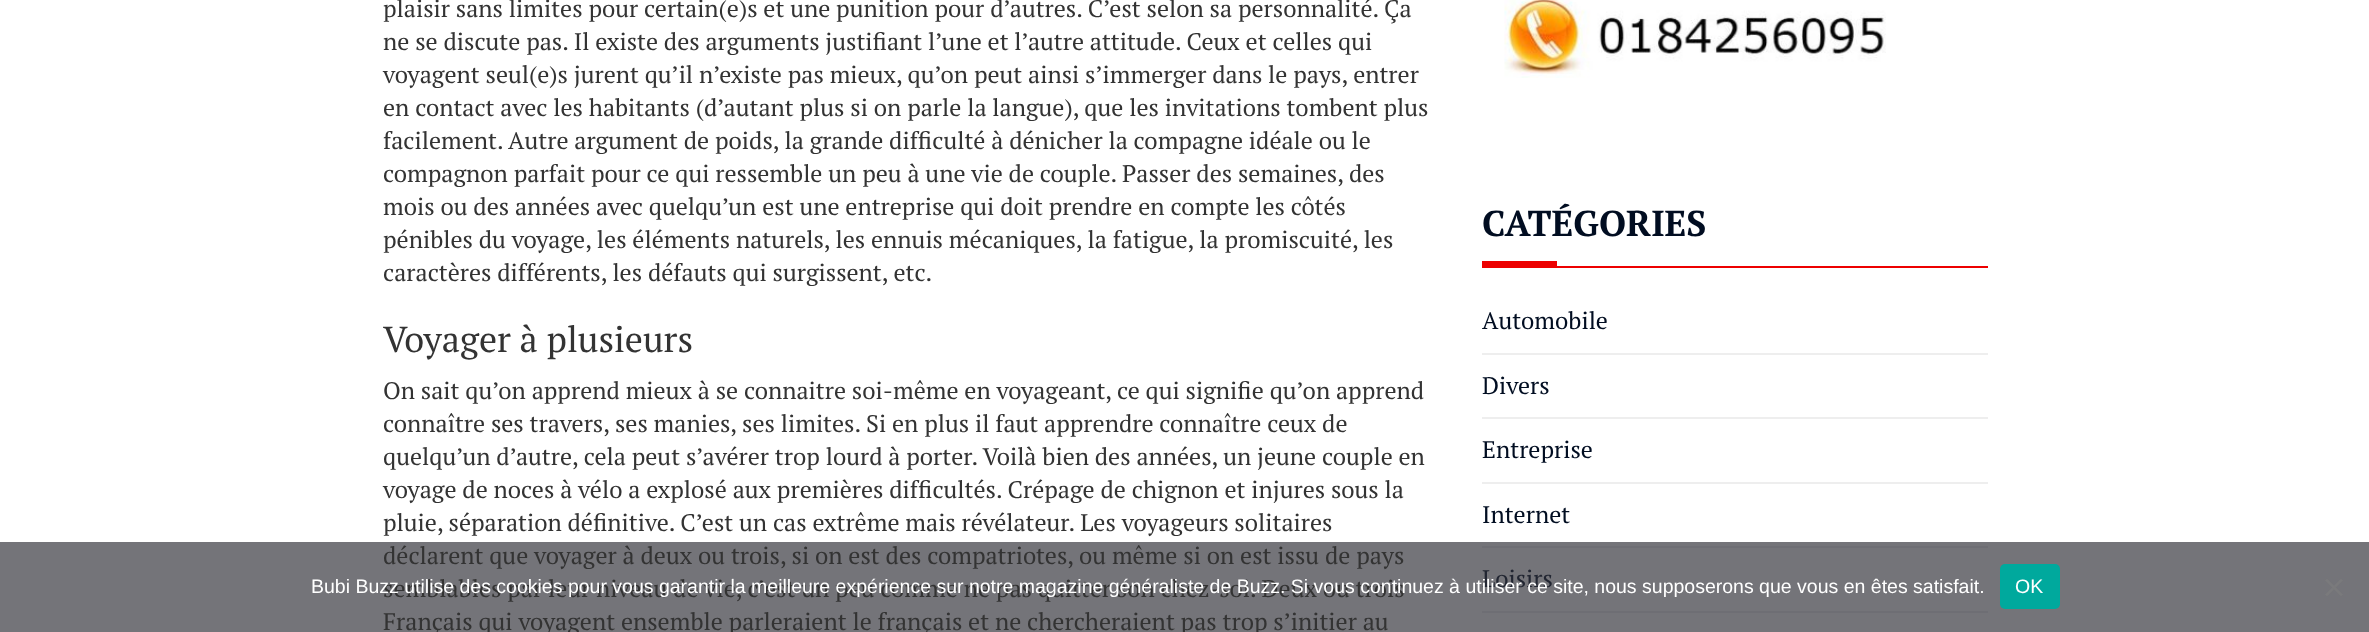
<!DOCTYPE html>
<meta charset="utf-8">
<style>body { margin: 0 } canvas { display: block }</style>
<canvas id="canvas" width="2369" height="632"></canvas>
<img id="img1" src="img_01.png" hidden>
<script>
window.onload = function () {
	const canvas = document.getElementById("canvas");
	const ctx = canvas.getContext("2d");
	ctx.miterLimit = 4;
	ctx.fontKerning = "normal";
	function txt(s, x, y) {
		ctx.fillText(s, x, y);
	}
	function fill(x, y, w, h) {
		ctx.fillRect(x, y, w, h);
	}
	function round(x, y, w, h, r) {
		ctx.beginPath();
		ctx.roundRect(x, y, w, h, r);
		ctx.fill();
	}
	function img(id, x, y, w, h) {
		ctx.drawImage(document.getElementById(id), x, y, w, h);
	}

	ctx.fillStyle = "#FFFFFF";
	fill(0, 0, 2369, 632);
	ctx.fillStyle = "#747479";
	fill(0, 542, 2369, 90);
	img("img1", 1504, 0, 382, 78);
	ctx.fillStyle = "#ED0000";
	fill(1482, 266, 506, 2);
	fill(1482, 261, 75, 5);
	ctx.fillStyle = "#EEEEEE";
	fill(1482, 353, 506, 2);
	fill(1482, 417, 506, 2);
	fill(1482, 482, 506, 2);
	ctx.fillStyle = "#6E6E74";
	fill(1482, 546, 506, 2);
	fill(1482, 611, 506, 2);
	ctx.fillStyle = "#00A99D";
	round(2000, 564, 60, 45, 5);
	ctx.fillStyle = "#7A7A7C";
	ctx.beginPath();
	ctx.moveTo(2341, 578.5);
	ctx.lineTo(2343, 580.5);
	ctx.lineTo(2327, 596.5);
	ctx.lineTo(2325, 594.5);
	ctx.closePath();
	ctx.fill();
	ctx.beginPath();
	ctx.moveTo(2325, 580.5);
	ctx.lineTo(2327, 578.5);
	ctx.lineTo(2343, 594.5);
	ctx.lineTo(2341, 596.5);
	ctx.closePath();
	ctx.fill();
	ctx.font = "24px PT Serif";
	ctx.fillStyle = "#333333";
	txt("plaisir sans limites pour certain(e)s et une punition pour d’autres. C’est selon sa personnalité. Ça", 383, 17);
	txt("ne se discute pas. Il existe des arguments justifiant l’une et l’autre attitude. Ceux et celles qui", 383, 50);
	txt("voyagent seul(e)s jurent qu’il n’existe pas mieux, qu’on peut ainsi s’immerger dans le pays, entrer", 383, 83);
	txt("en contact avec les habitants (d’autant plus si on parle la langue), que les invitations tombent plus", 383, 116);
	txt("facilement. Autre argument de poids, la grande difficulté à dénicher la compagne idéale ou le", 383, 149);
	txt("compagnon parfait pour ce qui ressemble un peu à une vie de couple. Passer des semaines, des", 383, 182);
	txt("mois ou des années avec quelqu’un est une entreprise qui doit prendre en compte les côtés", 383, 215);
	txt("pénibles du voyage, les éléments naturels, les ennuis mécaniques, la fatigue, la promiscuité, les", 383, 248);
	txt("caractères différents, les défauts qui surgissent, etc.", 383, 281);
	ctx.font = "36px PT Serif";
	txt("Voyager à plusieurs", 383, 352);
	ctx.font = "24px PT Serif";
	txt("On sait qu’on apprend mieux à se connaitre soi-même en voyageant, ce qui signifie qu’on apprend", 383, 399);
	txt("connaître ses travers, ses manies, ses limites. Si en plus il faut apprendre connaître ceux de", 383, 432);
	txt("quelqu’un d’autre, cela peut s’avérer trop lourd à porter. Voilà bien des années, un jeune couple en", 383, 465);
	txt("voyage de noces à vélo a explosé aux premières difficultés. Crépage de chignon et injures sous la", 383, 498);
	txt("pluie, séparation définitive. C’est un cas extrême mais révélateur. Les voyageurs solitaires", 383, 531);
	txt("déclarent que voyager à deux ou trois, si on est des compatriotes, ou même si on est issu de pays", 383, 564);
	txt("semblables par leur niveau de vie, c’est un peu comme ne pas quitter son chez-soi. Deux ou trois", 383, 597);
	txt("Français qui voyagent ensemble parleraient le français et ne chercheraient pas trop s’initier au", 383, 630);
	ctx.font = "bold 36px PT Serif";
	ctx.fillStyle = "#010D21";
	txt("CATÉGORIES", 1482, 236);
	ctx.font = "24px PT Serif";
	txt("Automobile", 1482, 329);
	txt("Divers", 1482, 394);
	txt("Entreprise", 1482, 458);
	txt("Internet", 1482, 523);
	ctx.fillStyle = "#222632";
	txt("Loisirs", 1482, 587);
	ctx.font = "19.5px Liberation Sans";
	ctx.fillStyle = "#FFFFFF";
	txt("Bubi Buzz utilise des cookies pour vous garantir la meilleure expérience sur notre magazine généraliste de Buzz. Si vous continuez à utiliser ce site, nous supposerons que vous en êtes satisfait.", 311, 593);
	txt("OK", 2015, 593);
};
</script>
